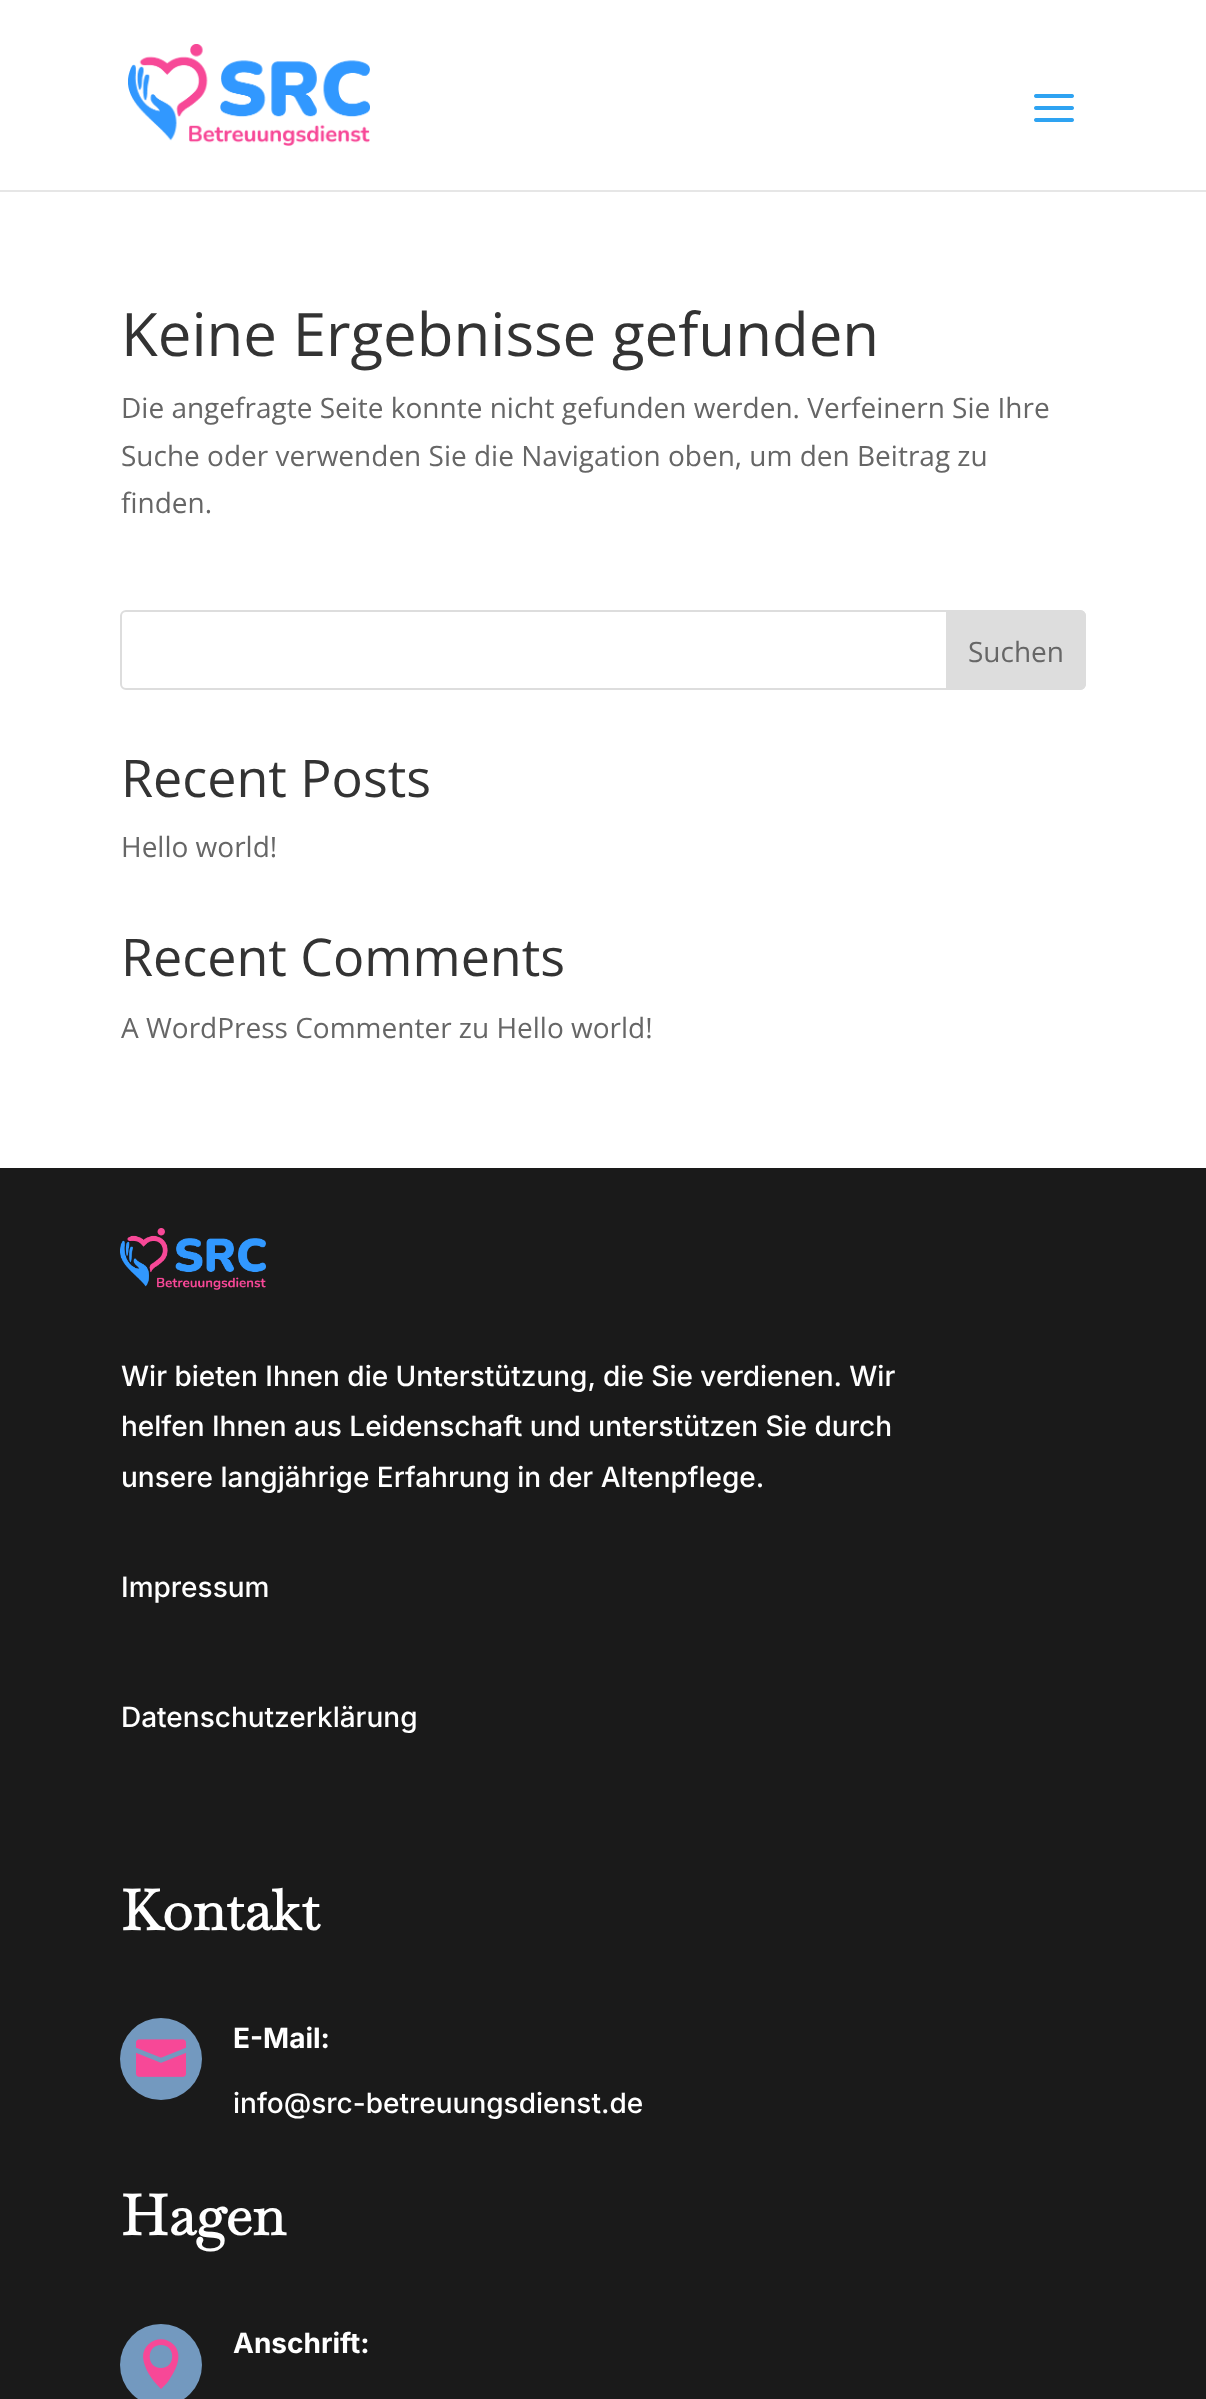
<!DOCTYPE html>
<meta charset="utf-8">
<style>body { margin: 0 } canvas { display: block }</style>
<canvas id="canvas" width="1206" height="2399"></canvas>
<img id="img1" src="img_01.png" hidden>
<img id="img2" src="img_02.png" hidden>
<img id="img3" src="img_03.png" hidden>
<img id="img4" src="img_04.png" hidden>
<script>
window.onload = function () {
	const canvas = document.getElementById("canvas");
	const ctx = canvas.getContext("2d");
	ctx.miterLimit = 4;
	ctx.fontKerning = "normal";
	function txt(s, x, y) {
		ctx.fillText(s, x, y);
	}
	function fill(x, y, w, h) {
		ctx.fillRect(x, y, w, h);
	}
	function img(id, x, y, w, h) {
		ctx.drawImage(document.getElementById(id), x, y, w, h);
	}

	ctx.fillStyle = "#FFFFFF";
	fill(0, 0, 1206, 2399);
	ctx.fillStyle = "#E6E6E6";
	fill(0, 190, 1206, 2);
	img("img1", 128, 44, 242, 102);
	img("img2", 1034, 94, 40, 28);
	ctx.beginPath();
	ctx.roundRect(121, 611, 964, 78, 5);
	ctx.strokeStyle = "#DDDDDD";
	ctx.lineWidth = 2;
	ctx.stroke();
	ctx.fillStyle = "#DDDDDD";
	ctx.beginPath();
	ctx.roundRect(947, 611, 138, 78, [0, 5, 5, 0]);
	ctx.fill();
	ctx.stroke();
	ctx.fillStyle = "#1A1A1A";
	fill(0, 1168, 1206, 1231);
	img("img3", 120, 1228, 146, 62);
	ctx.fillStyle = "#7399BF";
	ctx.beginPath();
	ctx.arc(161, 2059, 41, 0, Math.PI * 2);
	ctx.fill();
	img("img4", 136, 2039, 50, 38);
	ctx.beginPath();
	ctx.arc(161, 2365, 41, 0, Math.PI * 2);
	ctx.fill();
	ctx.fillStyle = "#F74897";
	ctx.beginPath();
	ctx.moveTo(160, 2388);
	ctx.lineTo(161, 2389);
	ctx.lineTo(167, 2383);
	ctx.bezierCurveTo(175, 2372, 184, 2356, 174, 2345);
	ctx.bezierCurveTo(163, 2333, 143, 2341, 143, 2357);
	ctx.bezierCurveTo(144, 2369, 152, 2380, 160, 2388);
	ctx.closePath();
	ctx.moveTo(161, 2345);
	ctx.bezierCurveTo(176, 2345, 176, 2368, 161, 2368);
	ctx.bezierCurveTo(146, 2368, 146, 2345, 161, 2345);
	ctx.closePath();
	ctx.fill();
	ctx.font = "60px Open Sans";
	ctx.fillStyle = "#333333";
	txt("Keine Ergebnisse gefunden", 121, 356);
	ctx.font = "28px Open Sans";
	ctx.fillStyle = "#666666";
	txt("Die angefragte Seite konnte nicht gefunden werden. Verfeinern Sie Ihre", 121, 418);
	txt("Suche oder verwenden Sie die Navigation oben, um den Beitrag zu", 121, 466);
	txt("finden.", 121, 513);
	txt("Suchen", 968, 662);
	ctx.font = "52px Open Sans";
	ctx.fillStyle = "#333333";
	txt("Recent Posts", 121, 797);
	ctx.font = "28px Open Sans";
	ctx.fillStyle = "#666666";
	txt("Hello world!", 121, 857);
	ctx.font = "52px Open Sans";
	ctx.fillStyle = "#333333";
	txt("Recent Comments", 121, 976);
	ctx.font = "28px Open Sans";
	ctx.fillStyle = "#666666";
	txt("A WordPress Commenter zu Hello world!", 121, 1038);
	ctx.font = "500 28px Inter";
	ctx.fillStyle = "#FFFFFF";
	txt("Wir bieten Ihnen die Unterstützung, die Sie verdienen. Wir", 121, 1386);
	txt("helfen Ihnen aus Leidenschaft und unterstützen Sie durch", 121, 1436);
	txt("unsere langjährige Erfahrung in der Altenpflege.", 121, 1487);
	txt("Impressum", 121, 1597);
	txt("Datenschutzerklärung", 121, 1727);
	ctx.font = "bold 56px Baskervville";
	txt("Kontakt", 121, 1930);
	ctx.font = "bold 28px Inter";
	txt("E-Mail:", 233, 2048);
	ctx.font = "500 28px Inter";
	txt("info@src-betreuungsdienst.de", 233, 2113);
	ctx.font = "bold 56px Baskervville";
	txt("Hagen", 121, 2235);
	ctx.font = "bold 28px Inter";
	txt("Anschrift:", 233, 2353);
};
</script>
